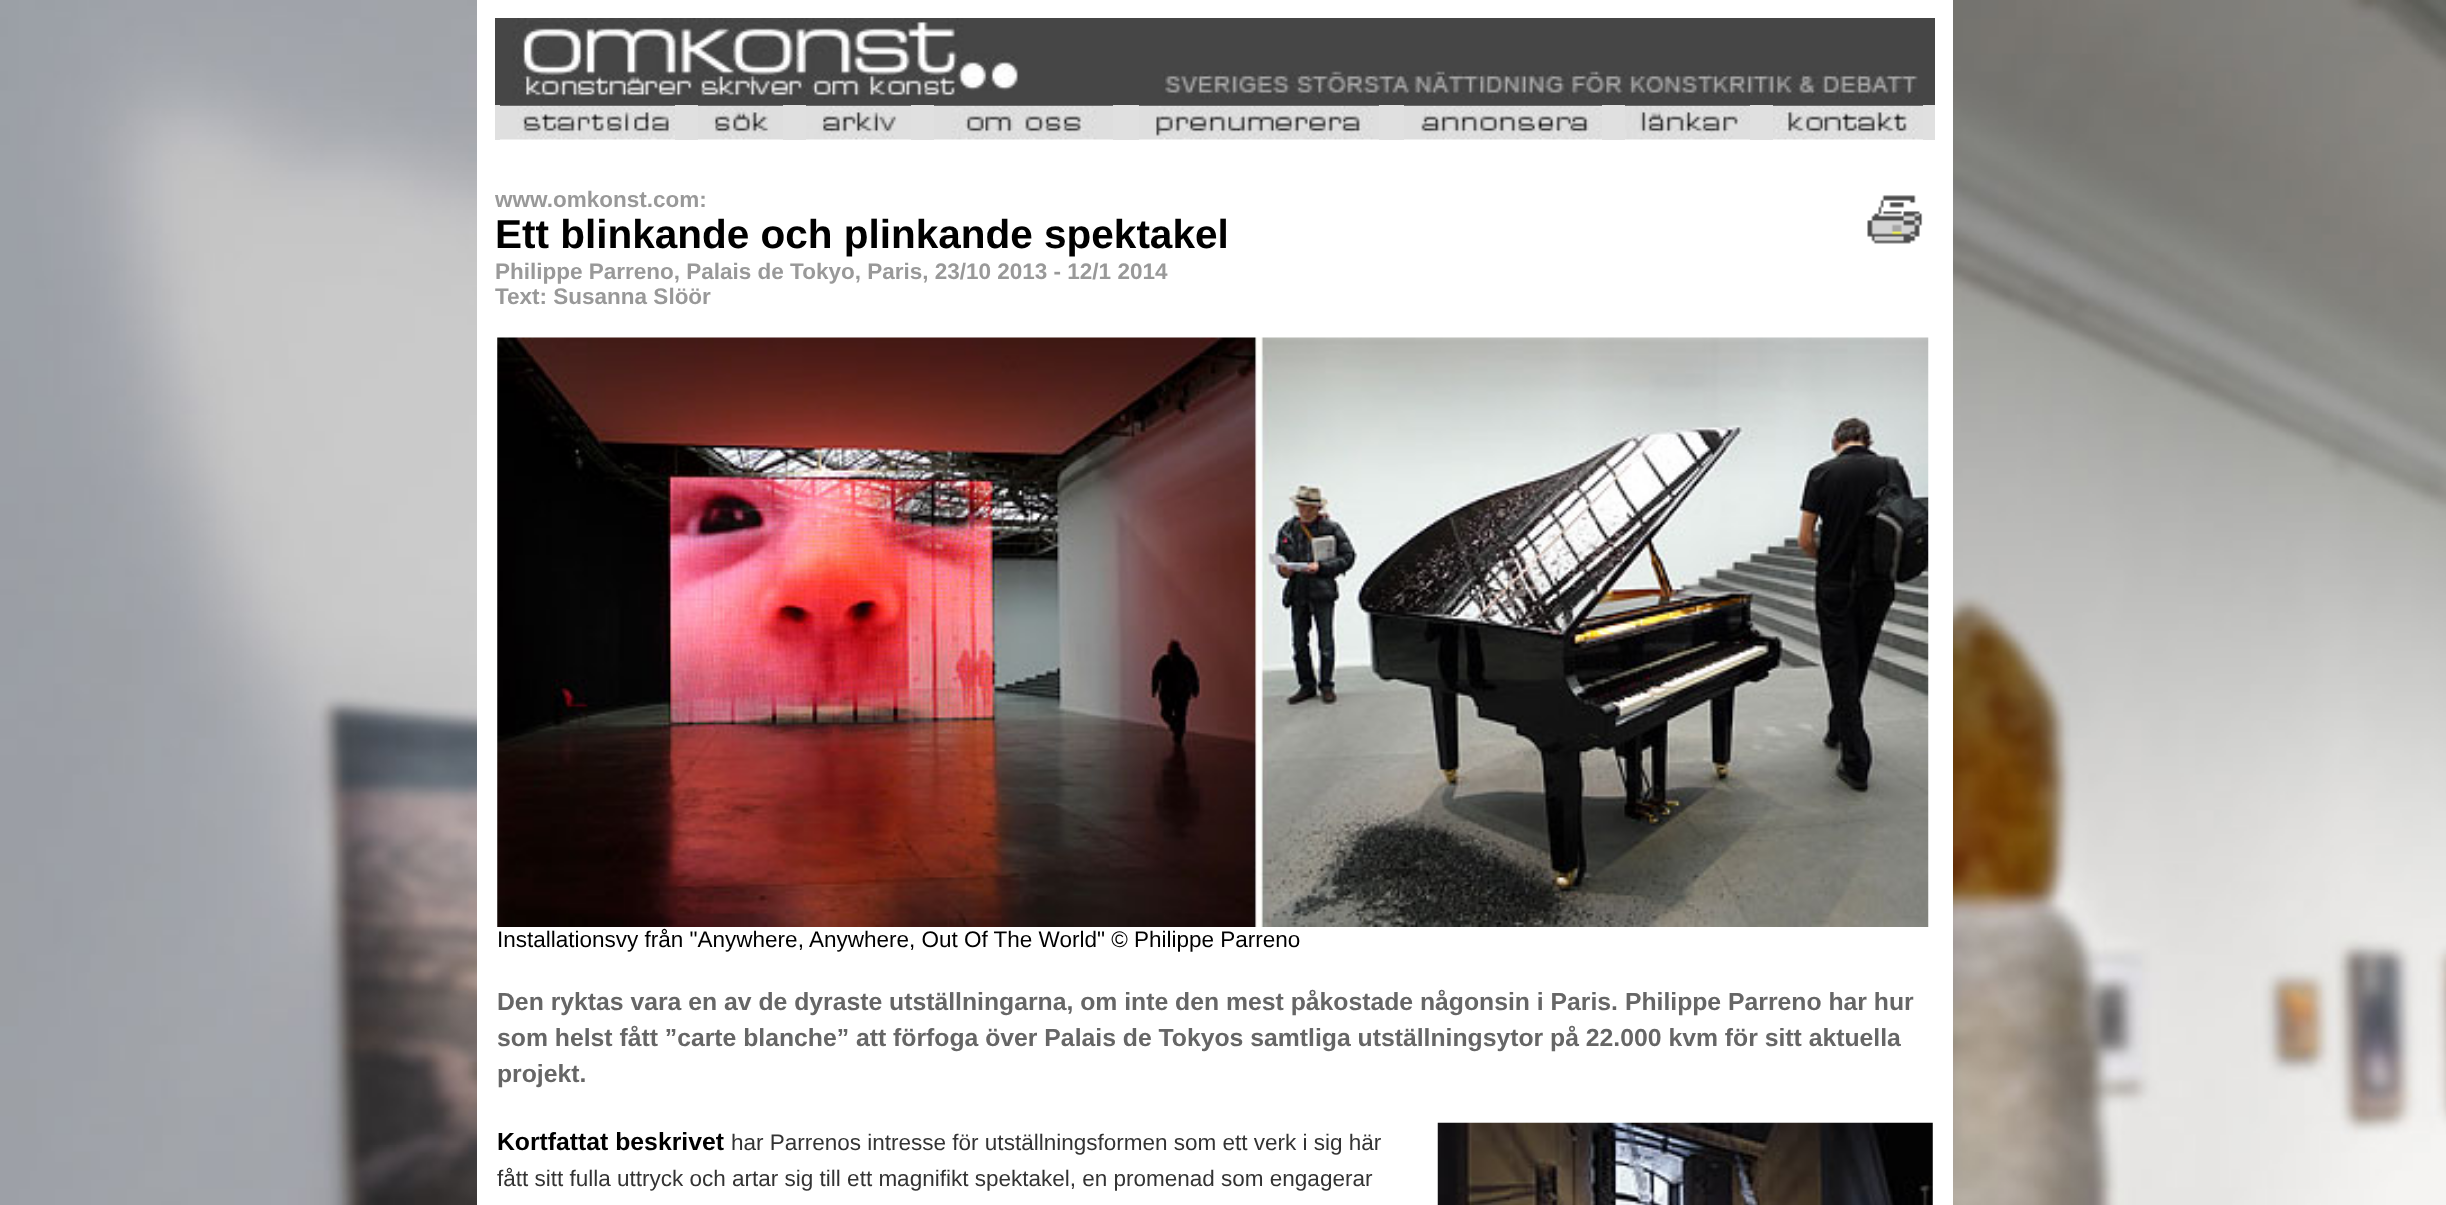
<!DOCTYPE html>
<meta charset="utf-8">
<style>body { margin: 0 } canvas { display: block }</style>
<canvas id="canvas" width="2446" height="1205"></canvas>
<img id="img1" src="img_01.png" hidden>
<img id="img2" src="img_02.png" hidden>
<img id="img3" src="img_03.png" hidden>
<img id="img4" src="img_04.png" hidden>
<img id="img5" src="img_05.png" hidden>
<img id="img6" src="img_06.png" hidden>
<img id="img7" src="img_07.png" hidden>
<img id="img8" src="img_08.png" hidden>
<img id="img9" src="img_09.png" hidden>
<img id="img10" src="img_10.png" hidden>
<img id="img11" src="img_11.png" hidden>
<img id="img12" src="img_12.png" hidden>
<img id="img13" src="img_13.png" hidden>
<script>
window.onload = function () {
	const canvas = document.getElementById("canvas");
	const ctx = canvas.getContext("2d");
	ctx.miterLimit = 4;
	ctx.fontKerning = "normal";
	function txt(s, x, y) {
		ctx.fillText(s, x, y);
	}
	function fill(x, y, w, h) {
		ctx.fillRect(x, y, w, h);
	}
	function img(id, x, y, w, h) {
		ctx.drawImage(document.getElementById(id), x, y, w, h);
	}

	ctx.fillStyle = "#FFFFFF";
	fill(0, 0, 2446, 1205);
	img("img1", 0, 0, 2446, 1205);
	fill(477, 0, 1476, 1205);
	img("img2", 495, 18, 1440, 81);
	ctx.fillStyle = "#464646";
	fill(495, 99, 1440, 7);
	ctx.fillStyle = "#E0E0E0";
	fill(495, 105, 5, 35);
	img("img3", 500, 105, 175, 35);
	fill(675, 105, 23, 35);
	img("img4", 698, 105, 85, 35);
	fill(783, 105, 23, 35);
	img("img5", 806, 105, 105, 35);
	fill(911, 105, 23, 35);
	img("img6", 934, 105, 179, 35);
	fill(1113, 105, 26, 35);
	img("img7", 1139, 105, 240, 35);
	fill(1379, 105, 25, 35);
	img("img8", 1404, 105, 198, 35);
	fill(1602, 105, 23, 35);
	img("img9", 1625, 105, 125, 35);
	fill(1750, 105, 23, 35);
	img("img10", 1773, 105, 150, 35);
	fill(1923, 105, 12, 35);
	img("img11", 1867, 195, 56, 49);
	img("img12", 497, 337, 1432, 590);
	img("img13", 1437, 1122, 496, 83);
	ctx.font = "bold 22.5px Liberation Sans";
	ctx.fillStyle = "#999999";
	txt("www.omkonst.com:", 495, 207);
	ctx.font = "bold 40.5px Liberation Sans";
	ctx.fillStyle = "#000000";
	txt("Ett blinkande och plinkande spektakel", 495, 248);
	ctx.font = "bold 22.5px Liberation Sans";
	ctx.fillStyle = "#999999";
	txt("Philippe Parreno, Palais de Tokyo, Paris, 23/10 2013 - 12/1 2014", 495, 279);
	txt("Text: Susanna Slöör", 495, 304);
	ctx.font = "22.5px Liberation Sans";
	ctx.fillStyle = "#000000";
	txt("Installationsvy från \"Anywhere, Anywhere, Out Of The World\" © Philippe Parreno", 497, 947);
	ctx.font = "bold 24.75px Liberation Sans";
	ctx.fillStyle = "#666666";
	txt("Den ryktas vara en av de dyraste utställningarna, om inte den mest påkostade någonsin i Paris. Philippe Parreno har hur", 497, 1010);
	txt("som helst fått ”carte blanche” att förfoga över Palais de Tokyos samtliga utställningsytor på 22.000 kvm för sitt aktuella", 497, 1046);
	txt("projekt.", 497, 1082);
	ctx.fillStyle = "#000000";
	txt("Kortfattat beskrivet", 497, 1150);
	ctx.font = "22.5px Liberation Sans";
	ctx.fillStyle = "#333333";
	txt("har Parrenos intresse för utställningsformen som ett verk i sig här", 731, 1150);
	txt("fått sitt fulla uttryck och artar sig till ett magnifikt spektakel, en promenad som engagerar", 497, 1186);
};
</script>
